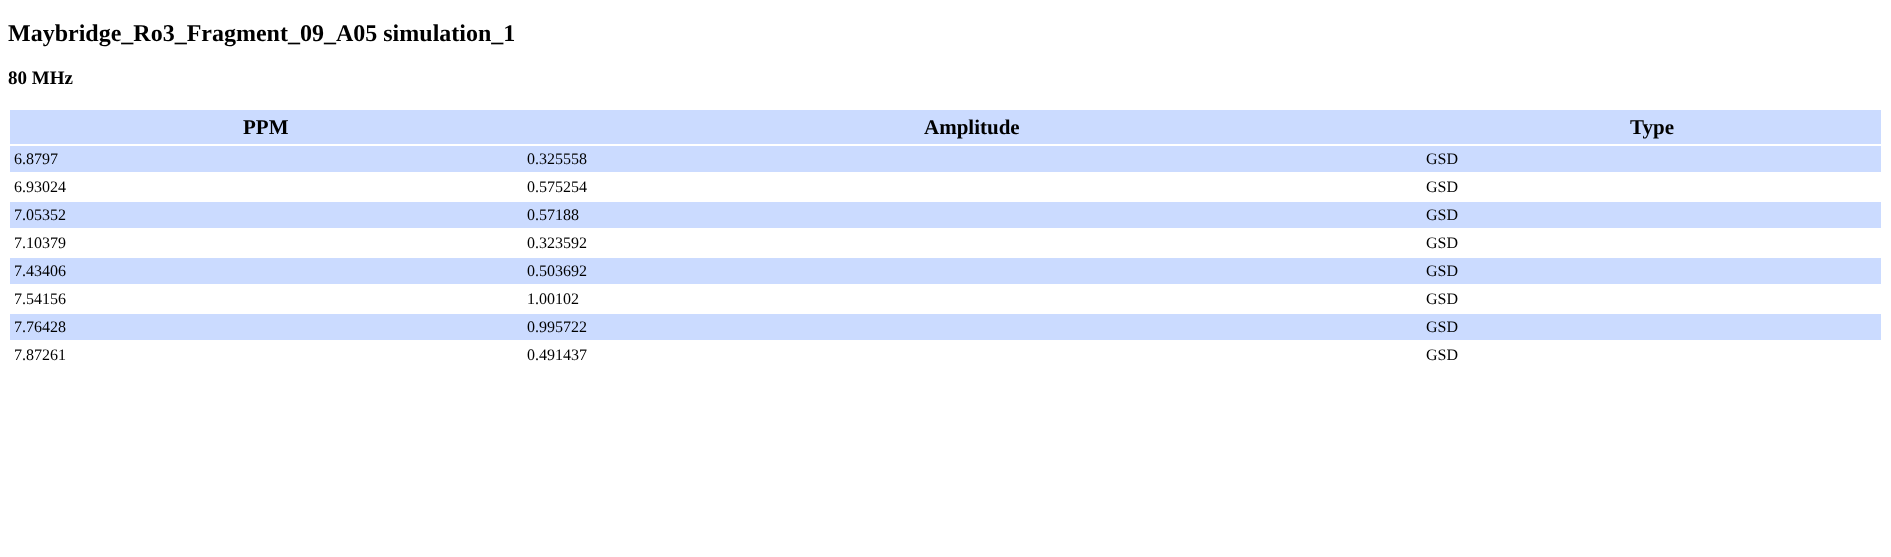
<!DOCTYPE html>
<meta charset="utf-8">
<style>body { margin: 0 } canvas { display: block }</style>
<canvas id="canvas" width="1891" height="557"></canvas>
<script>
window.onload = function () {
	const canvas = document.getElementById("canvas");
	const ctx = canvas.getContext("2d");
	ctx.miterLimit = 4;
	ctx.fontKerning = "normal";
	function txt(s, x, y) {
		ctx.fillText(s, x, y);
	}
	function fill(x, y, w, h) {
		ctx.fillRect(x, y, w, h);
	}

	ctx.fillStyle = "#FFFFFF";
	fill(0, 0, 1891, 557);
	ctx.fillStyle = "#CBDBFF";
	fill(10, 110, 1871, 34);
	fill(10, 146, 1871, 26);
	fill(10, 202, 1871, 26);
	fill(10, 258, 1871, 26);
	fill(10, 314, 1871, 26);
	ctx.font = "bold 24px Liberation Serif";
	ctx.fillStyle = "#000000";
	txt("Maybridge_Ro3_Fragment_09_A05 simulation_1", 8, 41);
	ctx.font = "bold 19px Liberation Serif";
	txt("80 MHz", 8, 84);
	ctx.font = "bold 21px Liberation Serif";
	txt("PPM", 243, 134);
	txt("Amplitude", 924, 134);
	txt("Type", 1630, 134);
	ctx.font = "16px Liberation Serif";
	txt("6.8797", 14, 164);
	txt("0.325558", 527, 164);
	txt("GSD", 1426, 164);
	txt("6.93024", 14, 192);
	txt("0.575254", 527, 192);
	txt("GSD", 1426, 192);
	txt("7.05352", 14, 220);
	txt("0.57188", 527, 220);
	txt("GSD", 1426, 220);
	txt("7.10379", 14, 248);
	txt("0.323592", 527, 248);
	txt("GSD", 1426, 248);
	txt("7.43406", 14, 276);
	txt("0.503692", 527, 276);
	txt("GSD", 1426, 276);
	txt("7.54156", 14, 304);
	txt("1.00102", 527, 304);
	txt("GSD", 1426, 304);
	txt("7.76428", 14, 332);
	txt("0.995722", 527, 332);
	txt("GSD", 1426, 332);
	txt("7.87261", 14, 360);
	txt("0.491437", 527, 360);
	txt("GSD", 1426, 360);
};
</script>
